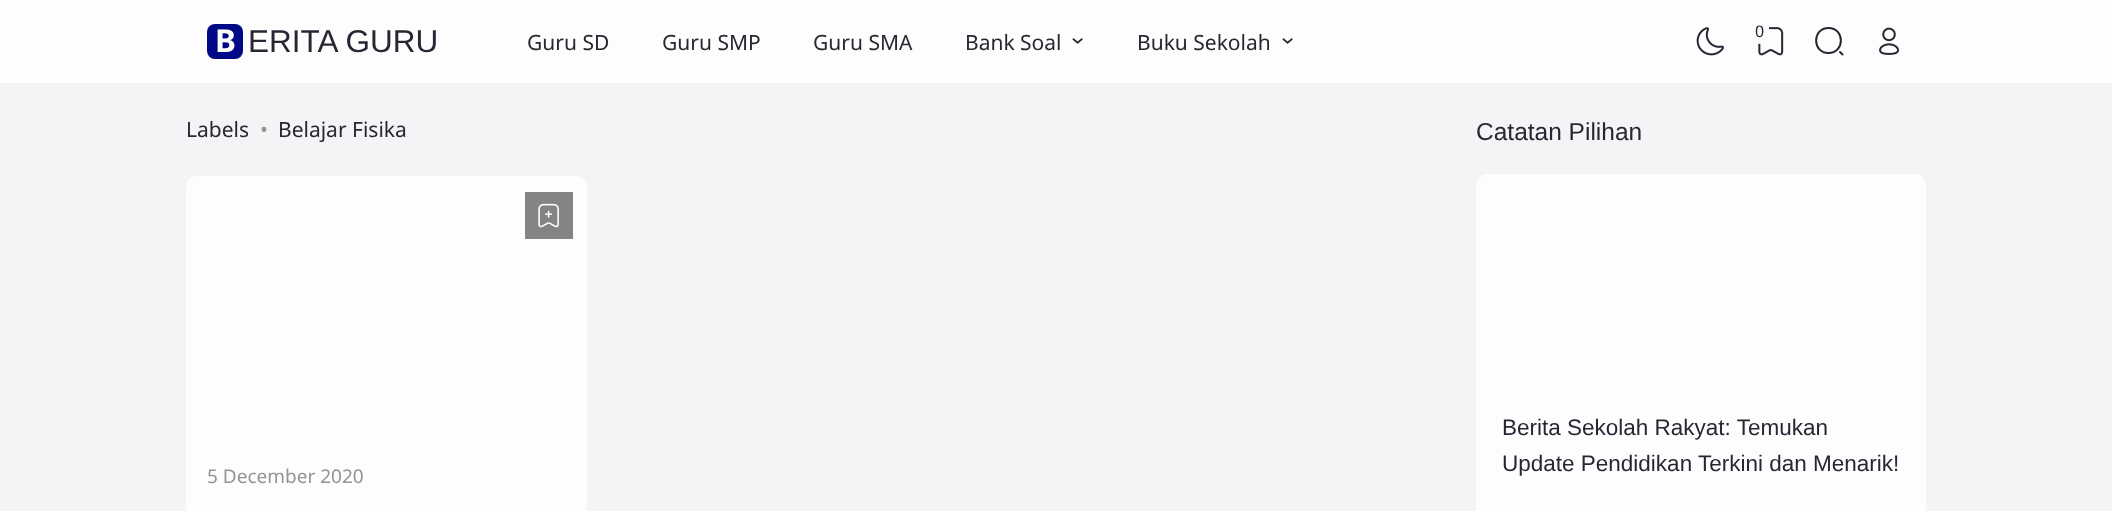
<!DOCTYPE html>
<meta charset="utf-8">
<style>body { margin: 0 } canvas { display: block }</style>
<canvas id="canvas" width="2112" height="511"></canvas>
<img id="img1" src="img_01.png" hidden>
<img id="img2" src="img_02.png" hidden>
<img id="img3" src="img_03.png" hidden>
<img id="img4" src="img_04.png" hidden>
<script>
window.onload = function () {
	const canvas = document.getElementById("canvas");
	const ctx = canvas.getContext("2d");
	ctx.miterLimit = 4;
	ctx.fontKerning = "normal";
	function txt(s, x, y) {
		ctx.fillText(s, x, y);
	}
	function fill(x, y, w, h) {
		ctx.fillRect(x, y, w, h);
	}
	function round(x, y, w, h, r) {
		ctx.beginPath();
		ctx.roundRect(x, y, w, h, r);
		ctx.fill();
	}
	function img(id, x, y, w, h) {
		ctx.drawImage(document.getElementById(id), x, y, w, h);
	}

	ctx.fillStyle = "#F3F4F6";
	fill(0, 0, 2112, 511);
	ctx.fillStyle = "#FDFDFD";
	fill(0, 0, 2112, 83);
	ctx.fillStyle = "#000985";
	round(207, 24, 36, 35, 8);
	img("img1", 1696, 27, 28, 29);
	img("img2", 1758, 27, 26, 29);
	ctx.fillStyle = "#FDFDFD";
	round(1751, 18, 18, 26, 9);
	ctx.beginPath();
	ctx.moveTo(1828.5, 53);
	ctx.bezierCurveTo(1845, 53, 1845, 28, 1828.5, 28);
	ctx.bezierCurveTo(1812, 28, 1812, 53, 1828.5, 53);
	ctx.closePath();
	ctx.moveTo(1842.5, 54.5);
	ctx.lineTo(1840, 52);
	ctx.strokeStyle = "#272733";
	ctx.lineWidth = 2;
	ctx.lineCap = "round";
	ctx.lineJoin = "round";
	ctx.stroke();
	img("img3", 1879, 27, 20, 28);
	round(186, 176, 401, 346, 11);
	ctx.fillStyle = "#848484";
	fill(525, 192, 48, 47);
	img("img4", 538, 203, 21, 25);
	ctx.fillStyle = "#FDFDFD";
	round(1476, 174, 450, 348, 11);
	ctx.font = "bold 31.5px Noto Sans";
	txt("B", 215, 52);
	ctx.font = "31.5px Liberation Sans";
	ctx.fillStyle = "#272733";
	txt("ERITA GURU", 248, 52);
	ctx.font = "21px Noto Sans";
	txt("Guru SD", 527, 50);
	txt("Guru SMP", 662, 50);
	txt("Guru SMA", 813, 50);
	txt("Bank Soal", 965, 50);
	ctx.font = "25px Noto Sans";
	ctx.save();
	ctx.translate(1071, 37);
	ctx.rotate(90 * Math.PI / 180);
	ctx.fillText("›", 0, 0);
	ctx.restore();
	ctx.font = "21px Noto Sans";
	txt("Buku Sekolah", 1137, 50);
	ctx.font = "25px Noto Sans";
	ctx.save();
	ctx.translate(1281, 37);
	ctx.rotate(90 * Math.PI / 180);
	ctx.fillText("›", 0, 0);
	ctx.restore();
	ctx.font = "16px Noto Sans";
	txt("0", 1755, 37);
	ctx.font = "21px Noto Sans";
	txt("Labels", 186, 137);
	ctx.fillStyle = "#949494";
	txt("•", 260, 137);
	ctx.fillStyle = "#272733";
	txt("Belajar Fisika", 278, 137);
	ctx.font = "19px Noto Sans";
	ctx.fillStyle = "#949494";
	txt("5 December 2020", 207, 483);
	ctx.font = "24.5px Liberation Sans";
	ctx.fillStyle = "#272733";
	txt("Catatan Pilihan", 1476, 140);
	ctx.font = "22.5px Liberation Sans";
	txt("Berita Sekolah Rakyat: Temukan", 1502, 435);
	txt("Update Pendidikan Terkini dan Menarik!", 1502, 471);
};
</script>
